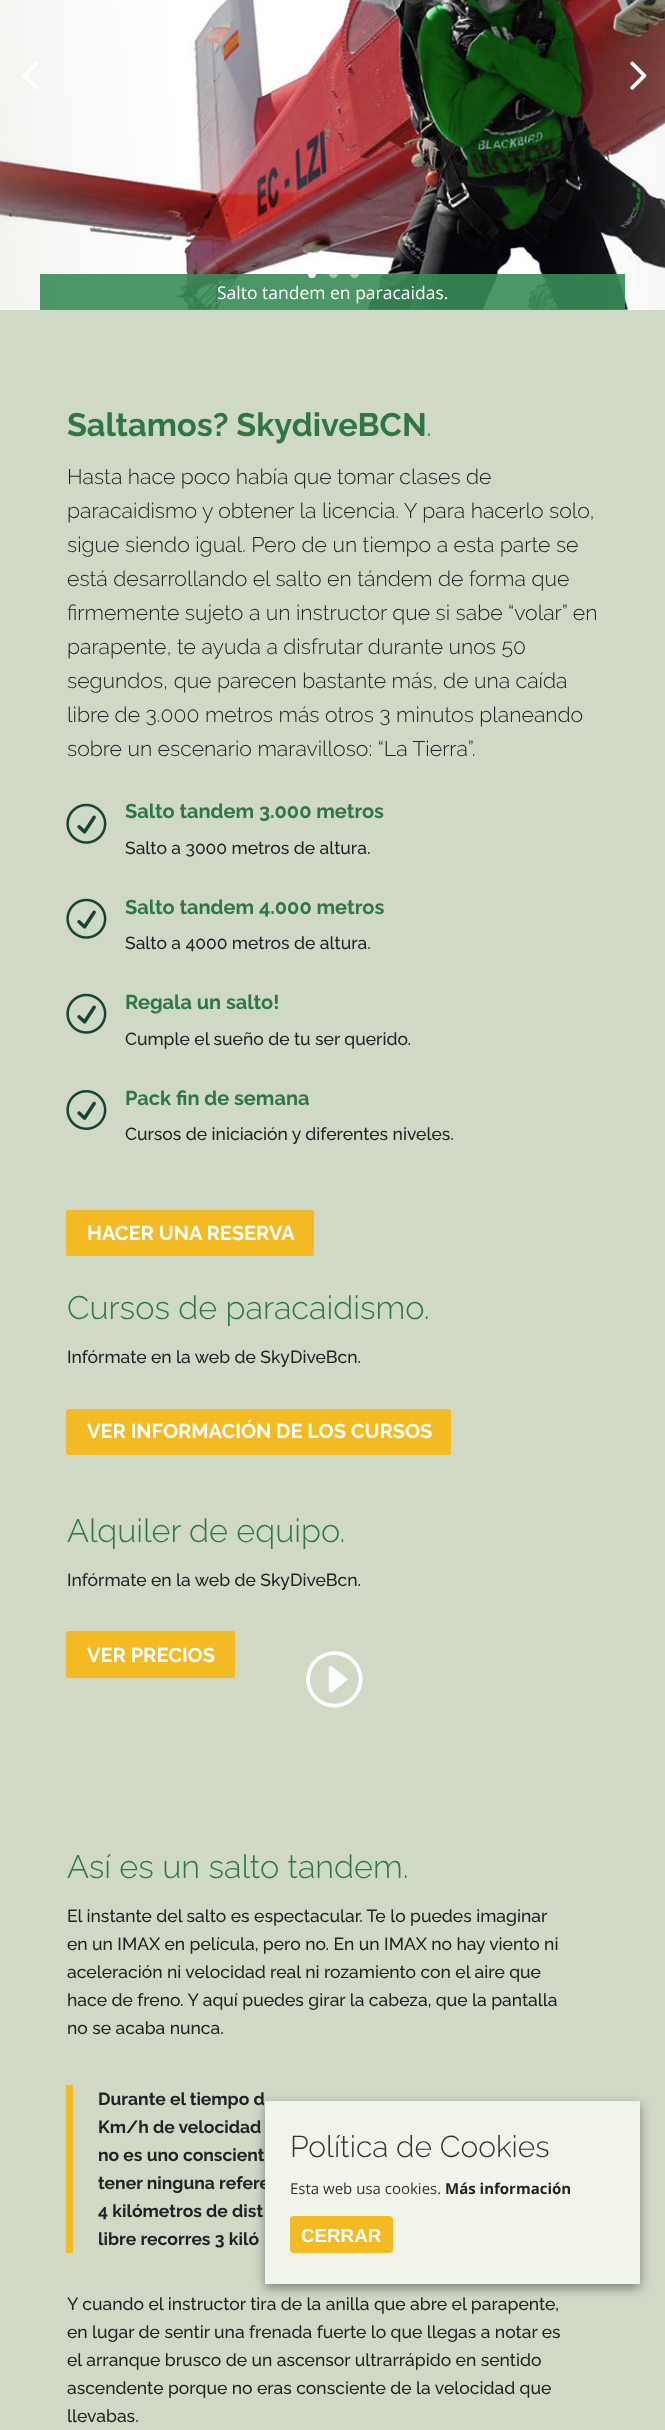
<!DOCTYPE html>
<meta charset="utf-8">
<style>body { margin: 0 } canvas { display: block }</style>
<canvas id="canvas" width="665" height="2430"></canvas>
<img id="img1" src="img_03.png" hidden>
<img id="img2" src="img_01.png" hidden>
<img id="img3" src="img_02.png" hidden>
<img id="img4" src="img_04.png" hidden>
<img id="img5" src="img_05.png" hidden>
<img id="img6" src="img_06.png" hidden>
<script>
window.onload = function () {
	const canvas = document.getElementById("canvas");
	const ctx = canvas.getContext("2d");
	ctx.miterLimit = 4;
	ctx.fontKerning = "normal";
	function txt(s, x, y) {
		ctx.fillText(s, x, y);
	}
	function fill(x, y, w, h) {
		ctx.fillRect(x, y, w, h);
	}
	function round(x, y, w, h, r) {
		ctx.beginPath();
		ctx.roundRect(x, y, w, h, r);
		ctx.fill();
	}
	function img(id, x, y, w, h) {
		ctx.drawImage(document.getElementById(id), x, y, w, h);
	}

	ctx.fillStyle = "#CFD9C6";
	fill(0, 0, 665, 2430);
	ctx.fillStyle = "#FFFFFF";
	fill(0, 309, 665, 1);
	img("img1", 0, 0, 665, 310);
	img("img2", 22, 62, 16, 28);
	img("img3", 630, 61, 17, 29);
	ctx.fillStyle = "rgba(57, 140, 88, 0.9)";
	fill(40, 274, 585, 36);
	ctx.fillStyle = "#FFFFFF";
	round(308, 269, 8, 9, 4);
	ctx.fillStyle = "rgba(255, 255, 255, 0.5)";
	ctx.beginPath();
	ctx.arc(333.5, 273.5, 4.5, 0, Math.PI * 2);
	ctx.fill();
	ctx.beginPath();
	ctx.arc(354.5, 273.5, 4.5, 0, Math.PI * 2);
	ctx.fill();
	img("img4", 66, 803, 41, 41);
	img("img4", 66, 898, 41, 41);
	img("img4", 66, 993, 41, 41);
	img("img5", 66, 1090, 41, 40);
	ctx.fillStyle = "#F3BA23";
	round(66, 1210, 248, 46, 2.5);
	round(66, 1409, 385, 46, 2.5);
	round(66, 1631, 169, 47, 2.5);
	img("img6", 306, 1651, 57, 57);
	fill(66, 2085, 7, 168);
	ctx.fillStyle = "rgba(0, 0, 0, 0.4)";
	ctx.filter = "blur(5.5px)";
	ctx.beginPath();
	ctx.rect(265, 2105, 375, 183);
	ctx.fill();
	ctx.filter = "none";
	ctx.font = "17.5px Open Sans";
	ctx.fillStyle = "#FFFFFF";
	txt("Salto tandem en paracaidas.", 217, 299);
	ctx.font = "bold 32.5px Raleway";
	ctx.fillStyle = "#2E7744";
	txt("Saltamos? SkydiveBCN", 67, 436);
	ctx.font = "300 32.5px Raleway";
	txt(".", 426, 436);
	ctx.font = "300 21.25px Raleway";
	ctx.fillStyle = "#222222";
	txt("Hasta hace poco había que tomar clases de", 67, 484);
	txt("paracaidismo y obtener la licencia. Y para hacerlo solo,", 67, 518);
	txt("sigue siendo igual. Pero de un tiempo a esta parte se", 67, 552);
	txt("está desarrollando el salto en tándem de forma que", 67, 586);
	txt("firmemente sujeto a un instructor que si sabe “volar” en", 67, 620);
	txt("parapente, te ayuda a disfrutar durante unos 50", 67, 654);
	txt("segundos, que parecen bastante más, de una caída", 67, 688);
	txt("libre de 3.000 metros más otros 3 minutos planeando", 67, 722);
	txt("sobre un escenario maravilloso: “La Tierra”.", 67, 756);
	ctx.font = "bold 20px Raleway";
	ctx.fillStyle = "#2E7744";
	txt("Salto tandem 3.000 metros", 125, 818);
	ctx.font = "500 17.5px Raleway";
	ctx.fillStyle = "#222222";
	txt("Salto a 3000 metros de altura.", 125, 854);
	ctx.font = "bold 20px Raleway";
	ctx.fillStyle = "#2E7744";
	txt("Salto tandem 4.000 metros", 125, 914);
	ctx.font = "500 17.5px Raleway";
	ctx.fillStyle = "#222222";
	txt("Salto a 4000 metros de altura.", 125, 949);
	ctx.font = "bold 20px Raleway";
	ctx.fillStyle = "#2E7744";
	txt("Regala un salto!", 125, 1009);
	ctx.font = "500 17.5px Raleway";
	ctx.fillStyle = "#222222";
	txt("Cumple el sueño de tu ser querido.", 125, 1045);
	ctx.font = "bold 20px Raleway";
	ctx.fillStyle = "#2E7744";
	txt("Pack fin de semana", 125, 1105);
	ctx.font = "500 17.5px Raleway";
	ctx.fillStyle = "#222222";
	txt("Cursos de iniciación y diferentes niveles.", 125, 1140);
	ctx.font = "bold 20px Raleway";
	ctx.fillStyle = "#FFFFFF";
	txt("HACER UNA RESERVA", 87, 1240);
	ctx.font = "300 32.5px Raleway";
	ctx.fillStyle = "#2E7744";
	txt("Cursos de paracaidismo.", 67, 1319);
	ctx.font = "500 17.5px Raleway";
	ctx.fillStyle = "#222222";
	txt("Infórmate en la web de SkyDiveBcn.", 67, 1363);
	ctx.font = "bold 20px Raleway";
	ctx.fillStyle = "#FFFFFF";
	txt("VER INFORMACIÓN DE LOS CURSOS", 87, 1438);
	ctx.font = "300 32.5px Raleway";
	ctx.fillStyle = "#2E7744";
	txt("Alquiler de equipo.", 67, 1542);
	ctx.font = "500 17.5px Raleway";
	ctx.fillStyle = "#222222";
	txt("Infórmate en la web de SkyDiveBcn.", 67, 1586);
	ctx.font = "bold 20px Raleway";
	ctx.fillStyle = "#FFFFFF";
	txt("VER PRECIOS", 87, 1662);
	ctx.font = "300 32.5px Raleway";
	ctx.fillStyle = "#2E7744";
	txt("Así es un salto tandem.", 67, 1878);
	ctx.font = "500 17.5px Raleway";
	ctx.fillStyle = "#222222";
	txt("El instante del salto es espectacular. Te lo puedes imaginar", 67, 1922);
	txt("en un IMAX en película, pero no. En un IMAX no hay viento ni", 67, 1950);
	txt("aceleración ni velocidad real ni rozamiento con el aire que", 67, 1978);
	txt("hace de freno. Y aquí puedes girar la cabeza, que la pantalla", 67, 2006);
	txt("no se acaba nunca.", 67, 2034);
	ctx.font = "bold 17.5px Raleway";
	txt("Durante el tiempo d", 98, 2105);
	txt("Km/h de velocidad", 98, 2133);
	txt("no es uno conscient", 98, 2161);
	txt("tener ninguna refere", 98, 2189);
	txt("4 kilómetros de dist", 98, 2217);
	txt("libre recorres 3 kiló", 98, 2245);
	ctx.font = "500 17.5px Raleway";
	txt("Y cuando el instructor tira de la anilla que abre el parapente,", 67, 2310);
	txt("en lugar de sentir una frenada fuerte lo que llegas a notar es", 67, 2338);
	txt("el arranque brusco de un ascensor ultrarrápido en sentido", 67, 2366);
	txt("ascendente porque no eras consciente de la velocidad que", 67, 2394);
	txt("llevabas.", 67, 2422);
	ctx.fillStyle = "#F0F4EA";
	fill(265, 2101, 375, 183);
	ctx.font = "300 30px Raleway";
	ctx.fillStyle = "#333333";
	txt("Política de Cookies", 290, 2157);
	ctx.font = "15px Open Sans";
	txt("Esta web usa cookies.", 290, 2194);
	ctx.font = "bold 15px Open Sans";
	ctx.fillStyle = "#222222";
	txt("Más información", 445, 2194);
	ctx.fillStyle = "#F3BA23";
	round(290, 2216, 103, 37, 4);
	ctx.font = "bold 18.75px Liberation Sans";
	ctx.fillStyle = "#FFFFFF";
	txt("CERRAR", 301, 2242);
};
</script>
